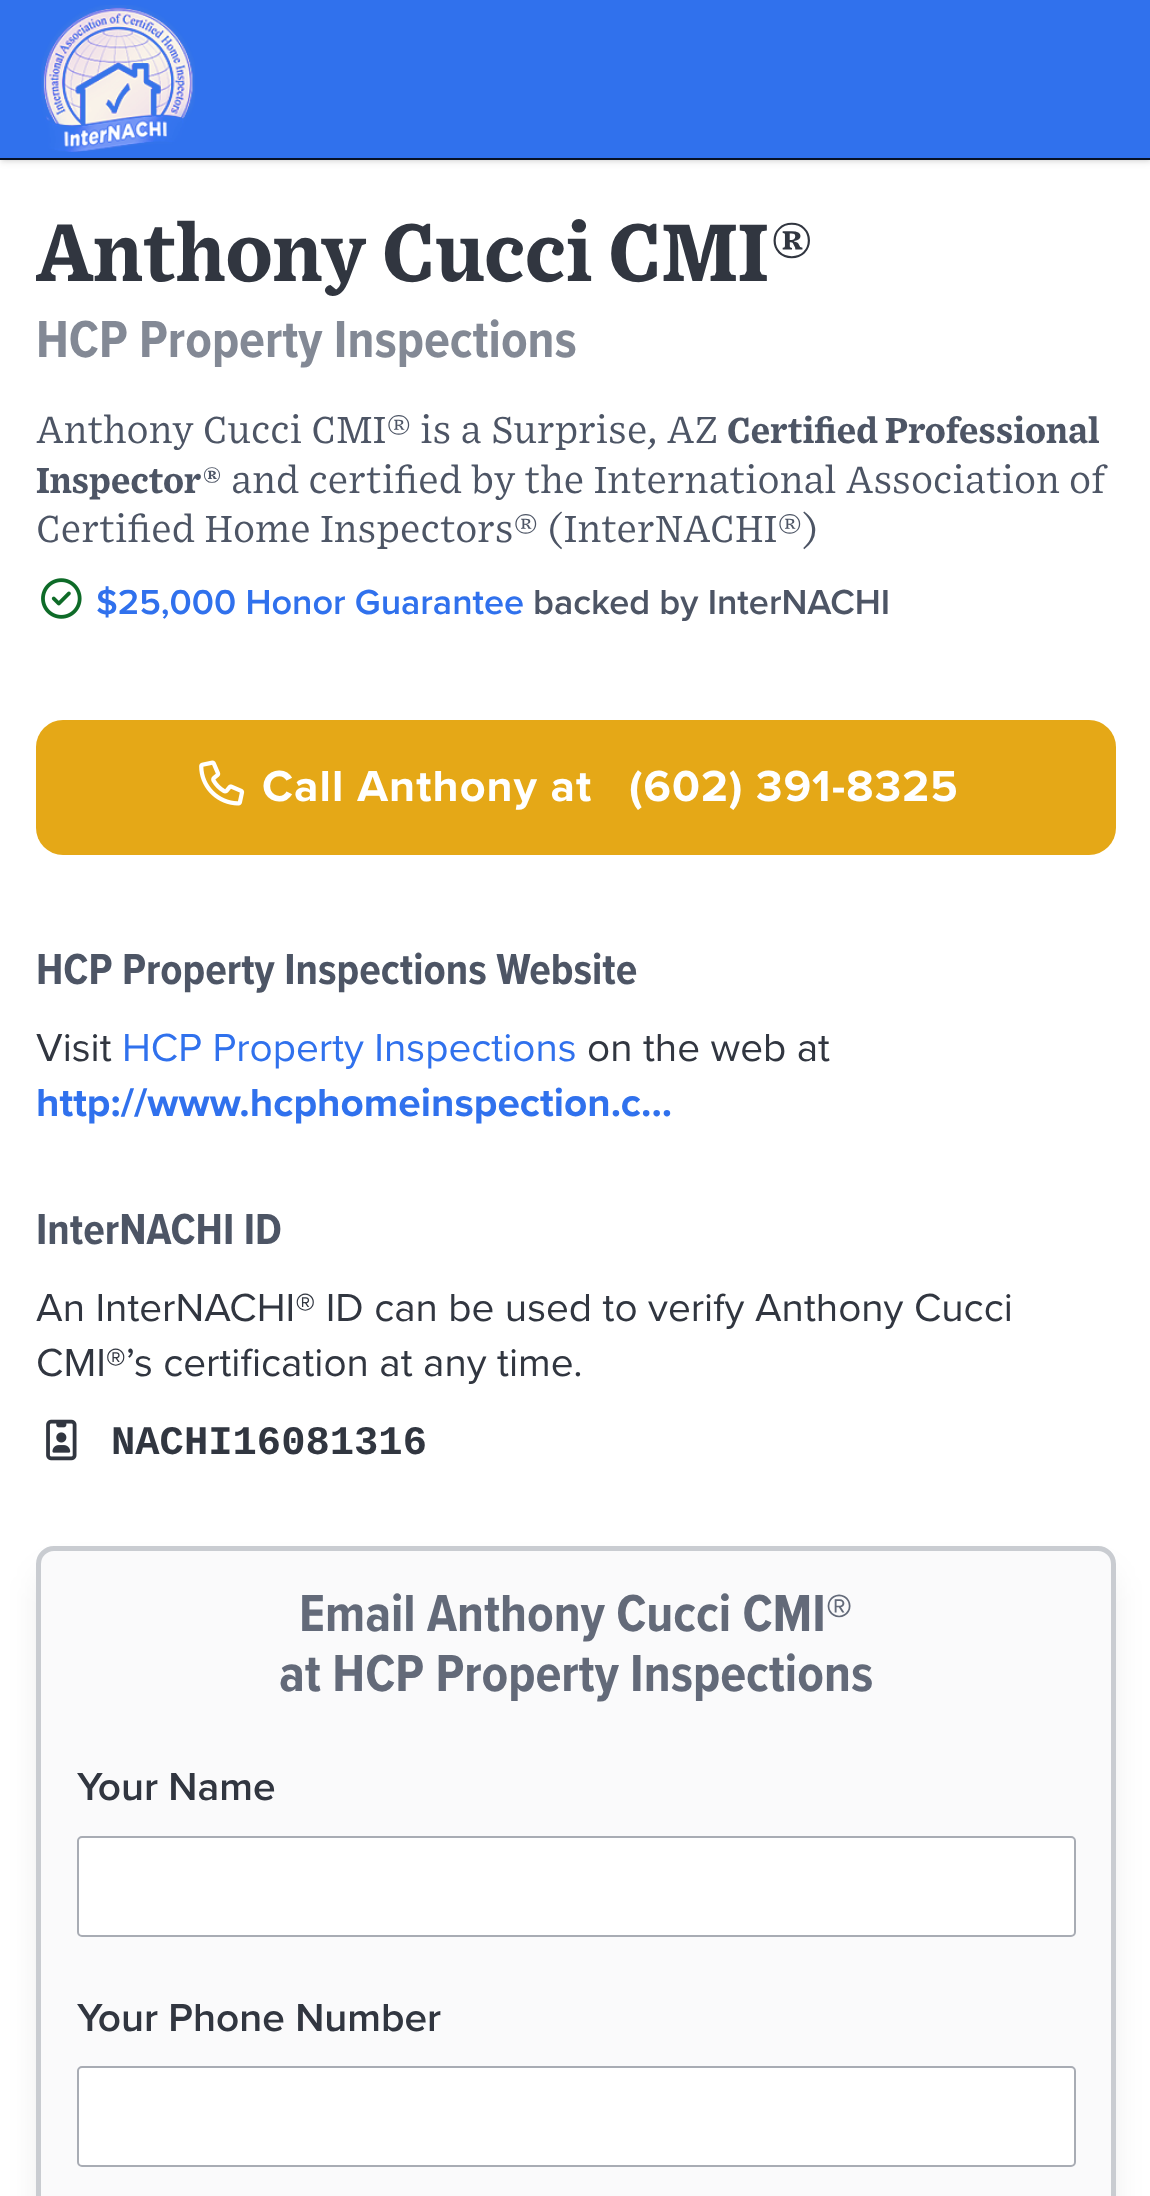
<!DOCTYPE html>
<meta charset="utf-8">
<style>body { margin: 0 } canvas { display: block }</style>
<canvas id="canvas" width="1150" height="2196"></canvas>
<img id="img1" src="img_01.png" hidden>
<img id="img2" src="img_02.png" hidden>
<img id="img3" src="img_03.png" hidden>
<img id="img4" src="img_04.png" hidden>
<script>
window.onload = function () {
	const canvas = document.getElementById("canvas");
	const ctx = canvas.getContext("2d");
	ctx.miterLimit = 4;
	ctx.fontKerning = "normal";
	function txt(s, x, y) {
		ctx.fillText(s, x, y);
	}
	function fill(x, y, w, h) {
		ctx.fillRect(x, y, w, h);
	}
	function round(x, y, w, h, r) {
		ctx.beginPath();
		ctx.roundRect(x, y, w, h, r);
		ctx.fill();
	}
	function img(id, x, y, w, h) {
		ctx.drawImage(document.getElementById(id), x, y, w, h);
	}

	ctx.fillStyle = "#FFFFFF";
	fill(0, 0, 1150, 2196);
	ctx.fillStyle = "rgba(0, 0, 0, 0.1)";
	ctx.filter = "blur(2px)";
	ctx.beginPath();
	ctx.rect(2, 5, 1148, 155);
	ctx.fill();
	ctx.filter = "none";
	ctx.filter = "blur(3.5px)";
	ctx.beginPath();
	ctx.rect(0, 2, 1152, 160);
	ctx.fill();
	ctx.filter = "none";
	ctx.fillStyle = "#3071ED";
	fill(0, 0, 1150, 158);
	ctx.fillStyle = "#061126";
	fill(0, 158, 1150, 2);
	img("img1", 41, 5, 154, 147);
	img("img2", 41, 578, 41, 41);
	ctx.fillStyle = "#E5A817";
	round(36, 720, 1080, 135, 27);
	img("img3", 199, 760, 46, 46);
	img("img4", 46, 1419, 31, 42);
	ctx.fillStyle = "rgba(0, 0, 0, 0.1)";
	ctx.filter = "blur(17px)";
	ctx.beginPath();
	ctx.roundRect(43, 1575, 1066, 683, 11);
	ctx.fill();
	ctx.filter = "none";
	ctx.fillStyle = "#FAFAFB";
	ctx.beginPath();
	ctx.roundRect(38.5, 1548.5, 1075, 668, 15.5);
	ctx.fill();
	ctx.strokeStyle = "#C9CCD1";
	ctx.lineWidth = 5;
	ctx.stroke();
	ctx.fillStyle = "#FFFFFF";
	ctx.beginPath();
	ctx.roundRect(78, 1837, 997, 99, 4);
	ctx.fill();
	ctx.strokeStyle = "#A8ACB4";
	ctx.lineWidth = 2;
	ctx.stroke();
	ctx.beginPath();
	ctx.roundRect(78, 2067, 997, 99, 4);
	ctx.fill();
	ctx.stroke();
	ctx.font = "bold 81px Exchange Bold";
	ctx.fillStyle = "#313640";
	txt("Anthony Cucci CMI®", 36, 281);
	ctx.font = "54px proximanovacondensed";
	ctx.fillStyle = "#838995";
	txt("HCP Property Inspections", 36, 357);
	ctx.font = "36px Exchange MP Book";
	ctx.fillStyle = "#4D5565";
	txt("Anthony Cucci CMI® is a Surprise, AZ", 36, 443);
	ctx.font = "bold 36px Exchange Bold";
	txt("Certified Professional", 727, 443);
	txt("Inspector®", 36, 493);
	ctx.font = "36px Exchange MP Book";
	txt("and certified by the International Association of", 231, 493);
	txt("Certified Home Inspectors® (InterNACHI®)", 36, 542);
	ctx.font = "600 36px Proxima Nova";
	ctx.fillStyle = "#3071ED";
	txt("$25,000 Honor Guarantee", 96, 614);
	ctx.fillStyle = "#4D5565";
	txt("backed by InterNACHI", 533, 614);
	ctx.letterSpacing = "1.1px";
	ctx.font = "45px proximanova";
	ctx.fillStyle = "#FFFFFF";
	txt("Call Anthony at", 262, 801);
	txt("(602) 391-8325", 629, 801);
	ctx.letterSpacing = "0px";
	ctx.font = "45px proximanovacondensed";
	ctx.fillStyle = "#4D5565";
	txt("HCP Property Inspections Website", 36, 984);
	ctx.font = "40.5px 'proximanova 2'";
	ctx.fillStyle = "#313640";
	txt("Visit", 36, 1061);
	ctx.fillStyle = "#3071ED";
	txt("HCP Property Inspections", 122, 1061);
	ctx.fillStyle = "#313640";
	txt("on the web at", 587, 1061);
	ctx.font = "40.5px proximanova";
	ctx.fillStyle = "#3071ED";
	txt("http://www.hcphomeinspection.c...", 36, 1116);
	ctx.font = "45px proximanovacondensed";
	ctx.fillStyle = "#4D5565";
	txt("InterNACHI ID", 36, 1244);
	ctx.font = "40.5px 'proximanova 2'";
	ctx.fillStyle = "#313640";
	txt("An InterNACHI® ID can be used to verify Anthony Cucci", 36, 1321);
	txt("CMI®’s certification at any time.", 36, 1376);
	ctx.font = "bold 40.5px Liberation Mono";
	txt("NACHI16081316", 111, 1454);
	ctx.font = "54px proximanovacondensed";
	ctx.fillStyle = "#636A79";
	txt("Email Anthony Cucci CMI®", 299, 1631);
	txt("at HCP Property Inspections", 279, 1691);
	ctx.font = "600 40.5px Proxima Nova";
	ctx.fillStyle = "#313640";
	txt("Your Name", 77, 1800);
	txt("Your Phone Number", 77, 2031);
};
</script>
